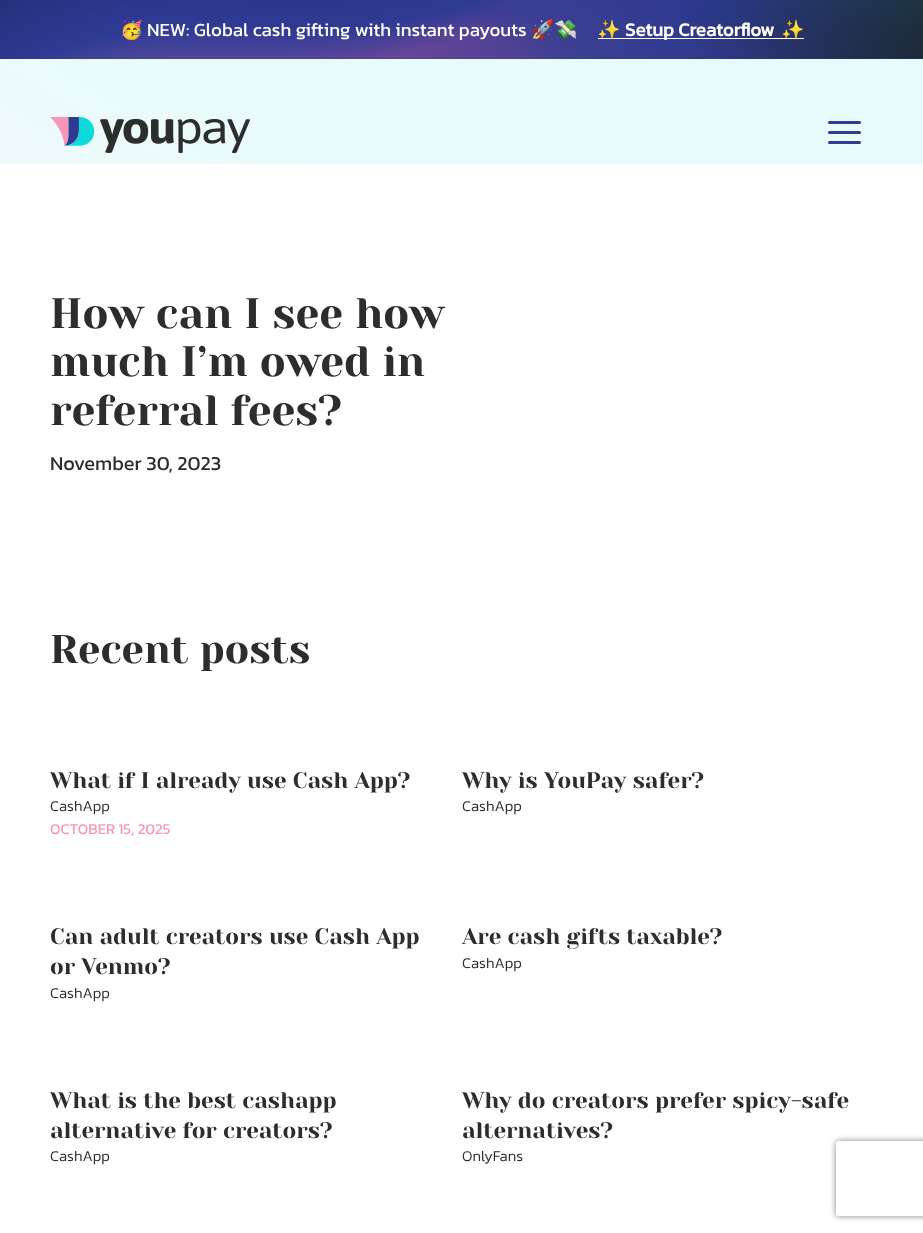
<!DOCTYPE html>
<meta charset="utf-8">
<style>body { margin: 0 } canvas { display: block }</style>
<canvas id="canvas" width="923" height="1233"></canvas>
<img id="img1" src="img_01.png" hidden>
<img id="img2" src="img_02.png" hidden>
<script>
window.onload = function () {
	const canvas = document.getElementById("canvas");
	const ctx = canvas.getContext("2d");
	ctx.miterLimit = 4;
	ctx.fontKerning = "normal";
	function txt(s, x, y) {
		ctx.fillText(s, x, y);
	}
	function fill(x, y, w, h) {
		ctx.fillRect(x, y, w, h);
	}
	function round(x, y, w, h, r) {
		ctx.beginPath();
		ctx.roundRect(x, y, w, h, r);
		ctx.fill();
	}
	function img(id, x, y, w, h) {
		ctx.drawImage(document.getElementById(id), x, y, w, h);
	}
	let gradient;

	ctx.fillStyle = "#FFFFFF";
	fill(0, 0, 923, 1233);
	gradient = ctx.createLinearGradient(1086, 96, -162, 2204);
	gradient.addColorStop(0.16, "#E7FBFC");
	gradient.addColorStop(0.43, "#FEF5F9");
	gradient.addColorStop(0.93, "#FEF5F9");
	ctx.fillStyle = gradient;
	fill(0, 59, 923, 105);
	ctx.fillStyle = "#2F3A93";
	fill(0, 0, 923, 59);
	img("img1", 0, 0, 923, 59);
	ctx.fillStyle = "#FFFFFF";
	fill(598, 38, 206, 1);
	img("img2", 50, 117, 200, 37);
	ctx.fillStyle = "#2E3C92";
	round(828, 121, 33, 3, 1.5);
	round(828, 131, 33, 3, 1.5);
	round(828, 141, 33, 3, 1.5);
	ctx.save();
	ctx.beginPath();
	ctx.moveTo(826, 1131);
	ctx.lineTo(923, 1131);
	ctx.lineTo(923, 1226);
	ctx.lineTo(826, 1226);
	ctx.closePath();
	ctx.moveTo(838.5, 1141);
	ctx.lineTo(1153.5, 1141);
	ctx.bezierCurveTo(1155, 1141, 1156, 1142, 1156, 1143.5);
	ctx.lineTo(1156, 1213.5);
	ctx.bezierCurveTo(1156, 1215, 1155, 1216, 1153.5, 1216);
	ctx.lineTo(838.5, 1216);
	ctx.bezierCurveTo(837, 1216, 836, 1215, 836, 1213.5);
	ctx.lineTo(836, 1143.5);
	ctx.bezierCurveTo(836, 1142, 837, 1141, 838.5, 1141);
	ctx.closePath();
	ctx.clip("evenodd");
	ctx.fillStyle = "#808080";
	ctx.filter = "blur(3px)";
	ctx.beginPath();
	ctx.roundRect(836, 1141, 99, 75, 2.5);
	ctx.fill();
	ctx.filter = "none";
	ctx.restore();
	ctx.font = "18.75px Noto Color Emoji";
	ctx.fillStyle = "#FFFFFF";
	txt("🥳", 120, 36);
	ctx.font = "18.75px Kanit";
	txt("NEW: Global cash gifting with instant payouts", 147, 36);
	ctx.font = "18.75px Noto Color Emoji";
	txt("🚀💸", 531, 36);
	ctx.font = "bold 18.75px Noto Color Emoji";
	txt("✨", 597, 36);
	ctx.font = "bold 18.75px Kanit";
	txt("Setup Creatorflow", 625, 36);
	ctx.font = "bold 18.75px Noto Color Emoji";
	txt("✨", 781, 36);
	ctx.font = "42.5px Yeseva One";
	ctx.fillStyle = "#2D2D2D";
	txt("How can I see how", 50, 328);
	txt("much I’m owed in", 50, 376);
	txt("referral fees?", 50, 425);
	ctx.font = "20px Kanit";
	txt("November 30, 2023", 50, 470);
	ctx.font = "40px Yeseva One";
	txt("Recent posts", 50, 663);
	ctx.font = "22.5px Yeseva One";
	txt("What if I already use Cash App?", 50, 788);
	ctx.font = "300 15px Kanit";
	txt("CashApp", 50, 811);
	ctx.font = "15px Kanit";
	ctx.fillStyle = "#F796B9";
	txt("OCTOBER 15, 2025", 50, 834);
	ctx.font = "22.5px Yeseva One";
	ctx.fillStyle = "#2D2D2D";
	txt("Why is YouPay safer?", 462, 788);
	ctx.font = "300 15px Kanit";
	txt("CashApp", 462, 811);
	ctx.font = "22.5px Yeseva One";
	txt("Can adult creators use Cash App", 50, 944);
	txt("or Venmo?", 50, 974);
	ctx.font = "300 15px Kanit";
	txt("CashApp", 50, 998);
	ctx.font = "22.5px Yeseva One";
	txt("Are cash gifts taxable?", 462, 944);
	ctx.font = "300 15px Kanit";
	txt("CashApp", 462, 968);
	ctx.font = "22.5px Yeseva One";
	txt("What is the best cashapp", 50, 1108);
	txt("alternative for creators?", 50, 1138);
	ctx.font = "300 15px Kanit";
	txt("CashApp", 50, 1161);
	ctx.font = "22.5px Yeseva One";
	txt("Why do creators prefer spicy-safe", 462, 1108);
	txt("alternatives?", 462, 1138);
	ctx.font = "300 15px Kanit";
	txt("OnlyFans", 462, 1161);
};
</script>
